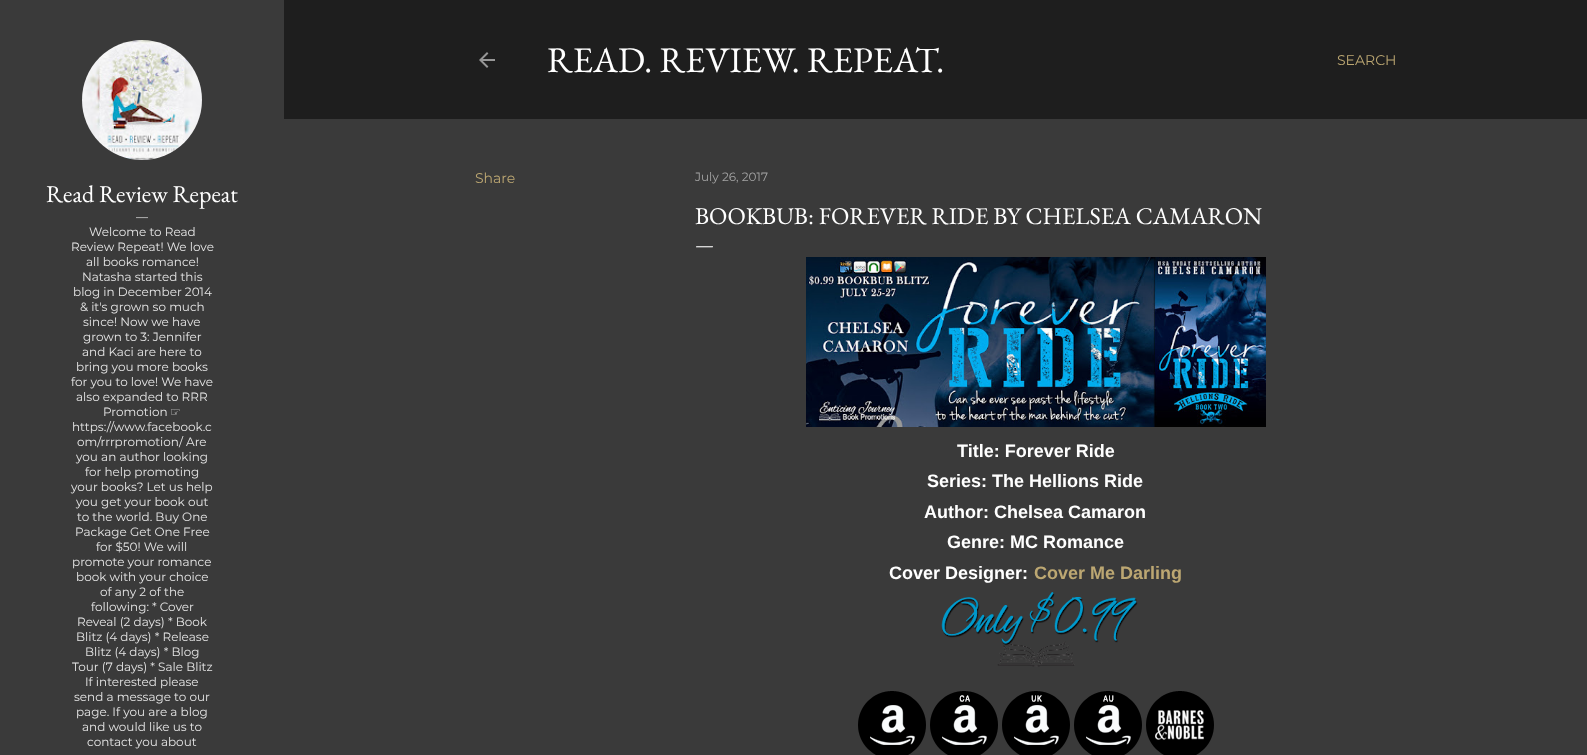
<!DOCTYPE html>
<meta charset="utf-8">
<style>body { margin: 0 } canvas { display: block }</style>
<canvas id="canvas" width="1587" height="755"></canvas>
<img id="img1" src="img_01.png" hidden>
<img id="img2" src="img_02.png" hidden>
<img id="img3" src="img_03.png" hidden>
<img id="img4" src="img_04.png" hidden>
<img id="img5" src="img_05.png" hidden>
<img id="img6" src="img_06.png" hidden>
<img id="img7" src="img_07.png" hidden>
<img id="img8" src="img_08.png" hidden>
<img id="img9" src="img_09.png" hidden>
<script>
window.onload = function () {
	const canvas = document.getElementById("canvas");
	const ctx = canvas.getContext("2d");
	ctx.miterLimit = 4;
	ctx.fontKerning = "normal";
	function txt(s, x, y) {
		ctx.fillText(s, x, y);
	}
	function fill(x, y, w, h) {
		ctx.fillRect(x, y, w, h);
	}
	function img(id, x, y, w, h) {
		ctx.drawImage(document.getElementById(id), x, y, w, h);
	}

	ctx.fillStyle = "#3A3A3A";
	fill(0, 0, 1587, 755);
	img("img1", 82, 40, 120, 120);
	ctx.fillStyle = "#1E1E1E";
	fill(284, 0, 1303, 119);
	img("img2", 479, 52, 16, 16);
	img("img3", 806, 257, 460, 170);
	img("img4", 941, 592, 197, 75);
	img("img5", 858, 691, 68, 64);
	img("img6", 930, 691, 68, 64);
	img("img7", 1002, 691, 68, 64);
	img("img8", 1074, 691, 68, 64);
	img("img9", 1146, 691, 68, 64);
	ctx.font = "24px EB Garamond";
	ctx.fillStyle = "#FFFFFF";
	txt("Read Review Repeat", 46, 202);
	ctx.font = "12px Montserrat";
	ctx.fillStyle = "#E5E5E5";
	txt("—", 136, 221);
	txt("Welcome to Read", 89, 236);
	txt("Review Repeat! We love", 71, 251);
	txt("all books romance!", 86, 266);
	txt("Natasha started this", 82, 281);
	txt("blog in December 2014", 73, 296);
	txt("& it's grown so much", 80, 311);
	txt("since! Now we have", 83, 326);
	txt("grown to 3: Jennifer", 83, 341);
	txt("and Kaci are here to", 82, 356);
	txt("bring you more books", 76, 371);
	txt("for you to love! We have", 71, 386);
	txt("also expanded to RRR", 76, 401);
	txt("Promotion", 103, 416);
	ctx.font = "12px DejaVu Sans";
	txt("☞", 170, 416);
	ctx.font = "12px Montserrat";
	txt("https://www.facebook.c", 72, 431);
	txt("om/rrrpromotion/ Are", 77, 446);
	txt("you an author looking", 76, 461);
	txt("for help promoting", 85, 476);
	txt("your books? Let us help", 71, 491);
	txt("you get your book out", 76, 506);
	txt("to the world. Buy One", 77, 521);
	txt("Package Get One Free", 75, 536);
	txt("for $50! We will", 96, 551);
	txt("promote your romance", 72, 566);
	txt("book with your choice", 76, 581);
	txt("of any 2 of the", 100, 596);
	txt("following: * Cover", 91, 611);
	txt("Reveal (2 days) * Book", 77, 626);
	txt("Blitz (4 days) * Release", 76, 641);
	txt("Blitz (4 days) * Blog", 85, 656);
	txt("Tour (7 days) * Sale Blitz", 72, 671);
	txt("If interested please", 85, 686);
	txt("send a message to our", 74, 701);
	txt("page. If you are a blog", 76, 716);
	txt("and would like us to", 82, 731);
	txt("contact you about", 87, 746);
	ctx.font = "36px EB Garamond";
	ctx.fillStyle = "#FFFFFF";
	txt("READ. REVIEW. REPEAT.", 547, 72);
	ctx.font = "14px Montserrat";
	ctx.fillStyle = "#BCA772";
	txt("SEARCH", 1337, 65);
	txt("Share", 475, 183);
	ctx.font = "12px Montserrat";
	ctx.fillStyle = "#A4A4A4";
	txt("July 26, 2017", 695, 181);
	ctx.font = "24px EB Garamond";
	ctx.fillStyle = "#FFFFFF";
	txt("BOOKBUB: FOREVER RIDE BY CHELSEA CAMARON", 695, 224);
	ctx.font = "20px EB Garamond";
	txt("—", 695, 251);
	ctx.font = "bold 18px Liberation Sans";
	txt("Title: Forever Ride", 957, 457);
	txt("Series: The Hellions Ride", 927, 487);
	txt("Author: Chelsea Camaron", 924, 518);
	txt("Genre: MC Romance", 947, 548);
	txt("Cover Designer:", 889, 579);
	ctx.fillStyle = "#BCA772";
	txt("Cover Me Darling", 1034, 579);
};
</script>
